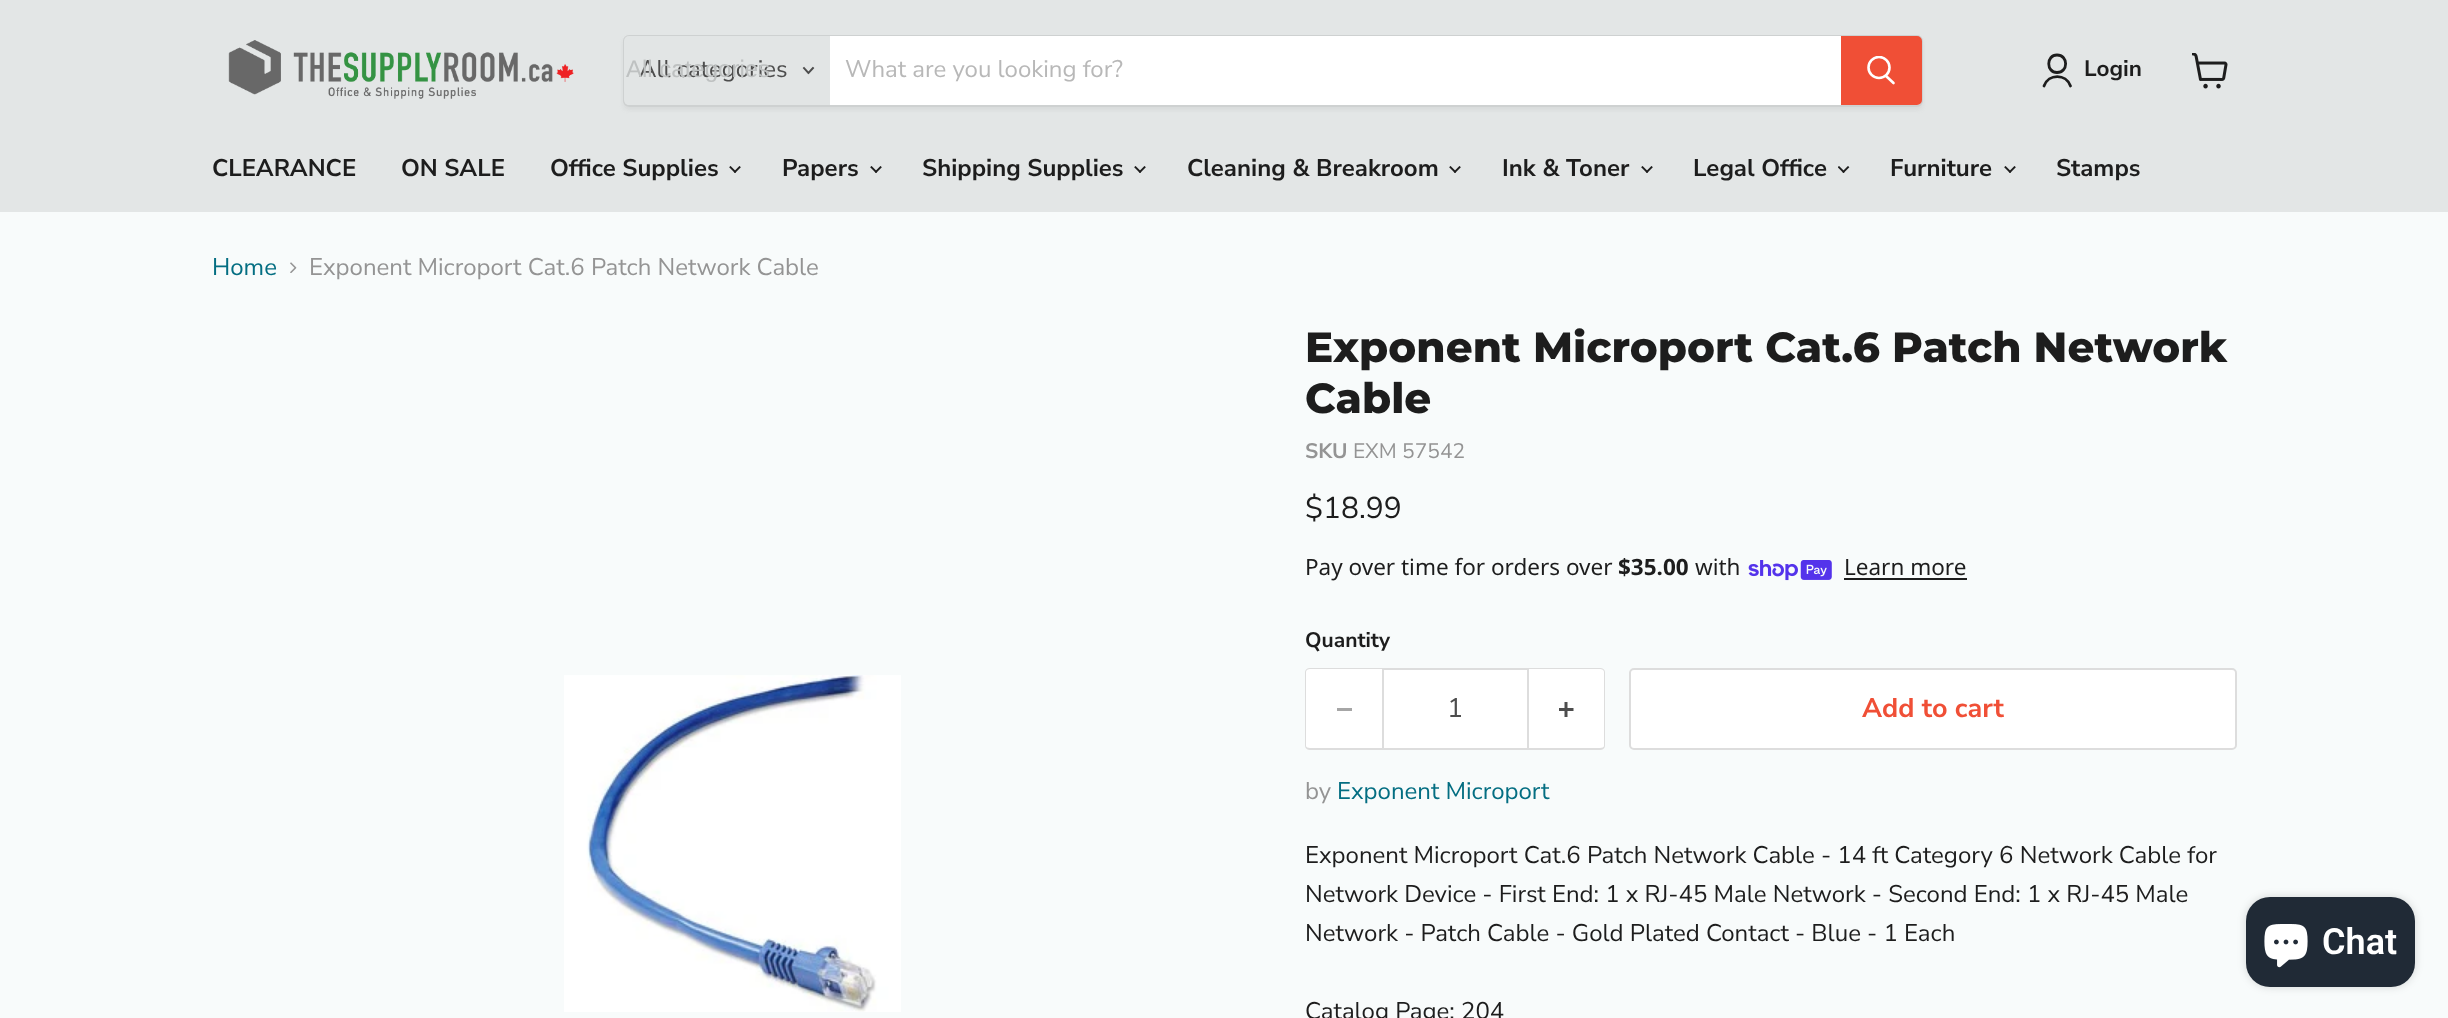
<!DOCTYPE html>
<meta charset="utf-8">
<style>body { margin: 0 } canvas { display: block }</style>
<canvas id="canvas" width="2448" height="1018"></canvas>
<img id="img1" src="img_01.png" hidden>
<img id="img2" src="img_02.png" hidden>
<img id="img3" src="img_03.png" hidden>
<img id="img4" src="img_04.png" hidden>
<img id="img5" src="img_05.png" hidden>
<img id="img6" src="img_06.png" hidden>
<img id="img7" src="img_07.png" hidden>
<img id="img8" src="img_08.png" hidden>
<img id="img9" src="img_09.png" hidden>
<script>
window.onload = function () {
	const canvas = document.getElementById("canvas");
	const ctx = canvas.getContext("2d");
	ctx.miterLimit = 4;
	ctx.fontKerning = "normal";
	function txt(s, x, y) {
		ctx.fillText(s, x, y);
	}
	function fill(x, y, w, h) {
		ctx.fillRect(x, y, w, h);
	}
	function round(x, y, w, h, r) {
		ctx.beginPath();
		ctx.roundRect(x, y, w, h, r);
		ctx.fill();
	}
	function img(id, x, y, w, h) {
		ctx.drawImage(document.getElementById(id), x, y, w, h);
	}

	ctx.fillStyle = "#F8FBFB";
	fill(0, 0, 2448, 1018);
	ctx.fillStyle = "#E3E6E6";
	fill(0, 0, 2448, 212);
	img("img1", 228, 40, 346, 59);
	ctx.save();
	ctx.beginPath();
	ctx.moveTo(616, 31);
	ctx.lineTo(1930, 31);
	ctx.lineTo(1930, 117);
	ctx.lineTo(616, 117);
	ctx.closePath();
	ctx.moveTo(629, 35);
	ctx.lineTo(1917, 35);
	ctx.bezierCurveTo(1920.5, 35, 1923, 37.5, 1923, 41);
	ctx.lineTo(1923, 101);
	ctx.bezierCurveTo(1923, 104.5, 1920.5, 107, 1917, 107);
	ctx.lineTo(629, 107);
	ctx.bezierCurveTo(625.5, 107, 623, 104.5, 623, 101);
	ctx.lineTo(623, 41);
	ctx.bezierCurveTo(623, 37.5, 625.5, 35, 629, 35);
	ctx.closePath();
	ctx.clip("evenodd");
	ctx.fillStyle = "rgba(124, 126, 126, 0.11)";
	ctx.filter = "blur(2px)";
	ctx.beginPath();
	ctx.roundRect(623, 38, 1300, 72, 6);
	ctx.fill();
	ctx.filter = "none";
	ctx.restore();
	ctx.beginPath();
	ctx.roundRect(624, 36, 1298, 70, 5);
	ctx.strokeStyle = "rgba(124, 126, 126, 0.2)";
	ctx.lineWidth = 2;
	ctx.stroke();
	ctx.fillStyle = "#E2E5E5";
	ctx.beginPath();
	ctx.roundRect(624, 36, 206, 69, [5, 0, 0, 5]);
	ctx.fill();
	ctx.beginPath();
	ctx.moveTo(808.5, 73);
	ctx.lineTo(813, 68);
	ctx.moveTo(808.5, 73);
	ctx.lineTo(804, 68);
	ctx.strokeStyle = "#4D4D4D";
	ctx.lineWidth = 1.9;
	ctx.lineCap = "square";
	ctx.stroke();
	ctx.fillStyle = "#FFFFFF";
	fill(830, 36, 1011, 69);
	ctx.fillStyle = "#F04F36";
	ctx.beginPath();
	ctx.roundRect(1842, 37, 79, 67, [0, 4, 4, 0]);
	ctx.fill();
	ctx.strokeStyle = "#F04F36";
	ctx.lineWidth = 2;
	ctx.stroke();
	ctx.beginPath();
	ctx.moveTo(1893.5, 83);
	ctx.lineTo(1886, 76);
	ctx.strokeStyle = "#FFFFFF";
	ctx.lineWidth = 2.6;
	ctx.lineCap = "round";
	ctx.stroke();
	ctx.save();
	ctx.beginPath();
	ctx.rect(1866, 56, 30, 31);
	ctx.clip();
	ctx.beginPath();
	ctx.arc(1879, 67.5, 10.5, 0, Math.PI * 2);
	ctx.stroke();
	ctx.restore();
	ctx.beginPath();
	ctx.moveTo(2057, 72.5);
	ctx.bezierCurveTo(2068.5, 72.5, 2068.5, 55, 2057, 55);
	ctx.bezierCurveTo(2046, 55, 2046, 72.5, 2057, 72.5);
	ctx.closePath();
	ctx.moveTo(2070.5, 86);
	ctx.bezierCurveTo(2066, 73.5, 2048.5, 73.5, 2044, 86);
	ctx.strokeStyle = "#1D1D1D";
	ctx.lineWidth = 2.8;
	ctx.lineJoin = "round";
	ctx.stroke();
	img("img2", 2192, 53, 36, 36);
	img("img3", 729, 166, 12, 7);
	img("img3", 870, 166, 12, 7);
	img("img3", 1134, 166, 12, 7);
	img("img3", 1449, 166, 12, 7);
	img("img3", 1641, 166, 12, 7);
	img("img4", 1838, 166, 12, 7);
	img("img3", 2004, 166, 12, 7);
	img("img5", 290, 262, 7, 11);
	img("img6", 564, 675, 337, 337);
	img("img7", 1748, 560, 84, 21);
	ctx.fillStyle = "#1D1D1D";
	fill(1844, 578, 123, 2);
	ctx.fillStyle = "#FFFFFF";
	ctx.beginPath();
	ctx.roundRect(1305, 668, 77, 82, [5, 0, 0, 5]);
	ctx.fill();
	ctx.fillStyle = "#DDDDDD";
	ctx.beginPath();
	ctx.moveTo(1310, 668);
	ctx.lineTo(1382, 668);
	ctx.lineTo(1382, 750);
	ctx.lineTo(1310, 750);
	ctx.bezierCurveTo(1307, 750, 1305, 748, 1305, 746);
	ctx.lineTo(1305, 672);
	ctx.bezierCurveTo(1305, 670, 1307, 668, 1310, 668);
	ctx.closePath();
	ctx.moveTo(1310, 669);
	ctx.lineTo(1382, 669);
	ctx.lineTo(1382, 748);
	ctx.lineTo(1310, 748);
	ctx.bezierCurveTo(1308, 748, 1306, 747, 1306, 746);
	ctx.lineTo(1306, 672);
	ctx.bezierCurveTo(1306, 670, 1308, 669, 1310, 669);
	ctx.closePath();
	ctx.fill("evenodd");
	ctx.fillStyle = "#A6A6A6";
	fill(1337, 708, 15, 3);
	ctx.fillStyle = "#FFFFFF";
	ctx.beginPath();
	ctx.rect(1383, 669, 145, 80);
	ctx.fill();
	ctx.strokeStyle = "#DDDDDD";
	ctx.lineWidth = 2;
	ctx.lineJoin = "miter";
	ctx.stroke();
	ctx.beginPath();
	ctx.roundRect(1529, 668, 76, 82, [0, 5, 5, 0]);
	ctx.fill();
	ctx.fillStyle = "#DDDDDD";
	ctx.beginPath();
	ctx.moveTo(1528, 668);
	ctx.lineTo(1600, 668);
	ctx.bezierCurveTo(1603, 668, 1605, 670, 1605, 672);
	ctx.lineTo(1605, 746);
	ctx.bezierCurveTo(1605, 748, 1603, 750, 1600, 750);
	ctx.lineTo(1528, 750);
	ctx.closePath();
	ctx.moveTo(1528, 669);
	ctx.lineTo(1600, 669);
	ctx.bezierCurveTo(1602, 669, 1604, 670, 1604, 672);
	ctx.lineTo(1604, 746);
	ctx.bezierCurveTo(1604, 747, 1602, 748, 1600, 748);
	ctx.lineTo(1528, 748);
	ctx.closePath();
	ctx.fill("evenodd");
	img("img8", 1559, 702, 15, 15);
	ctx.fillStyle = "#FFFFFF";
	ctx.beginPath();
	ctx.roundRect(1630, 669, 606, 80, 4);
	ctx.fill();
	ctx.stroke();
	ctx.fillStyle = "rgba(0, 0, 0, 0.15)";
	ctx.filter = "blur(4px)";
	ctx.beginPath();
	ctx.roundRect(2246, 897, 169, 90, 24);
	ctx.fill();
	ctx.filter = "none";
	ctx.fillStyle = "#202A36";
	round(2246, 897, 169, 90, 24);
	img("img9", 2264, 924, 44, 44);
	ctx.font = "24px Nunito Sans";
	ctx.fillStyle = "#4D4D4D";
	txt("All categories", 639, 77);
	ctx.font = "24px Liberation Sans";
	ctx.fillStyle = "#BEC1C1";
	txt("All categories", 626, 77);
	ctx.font = "24px Nunito Sans";
	ctx.fillStyle = "#B8B8B8";
	txt("What are you looking for?", 845, 77);
	ctx.font = "bold 22.5px Nunito Sans";
	ctx.fillStyle = "#1D1D1D";
	txt("Login", 2084, 76);
	ctx.font = "bold 24px Nunito Sans";
	txt("CLEARANCE", 212, 176);
	txt("ON SALE", 401, 176);
	txt("Office Supplies", 550, 176);
	txt("Papers", 782, 176);
	txt("Shipping Supplies", 922, 176);
	txt("Cleaning & Breakroom", 1187, 176);
	txt("Ink & Toner", 1502, 176);
	txt("Legal Office", 1693, 176);
	txt("Furniture", 1890, 176);
	txt("Stamps", 2056, 176);
	ctx.font = "24px Nunito Sans";
	ctx.fillStyle = "#046E82";
	txt("Home", 212, 275);
	ctx.fillStyle = "#949494";
	txt("Exponent Microport Cat.6 Patch Network Cable", 309, 275);
	ctx.font = "800 42px Montserrat";
	ctx.fillStyle = "#1D1D1D";
	txt("Exponent Microport Cat.6 Patch Network", 1305, 362);
	txt("Cable", 1305, 413);
	ctx.font = "bold 21px Nunito Sans";
	ctx.fillStyle = "#949494";
	txt("SKU", 1305, 458);
	ctx.font = "21px Nunito Sans";
	txt("EXM 57542", 1353, 458);
	ctx.font = "30px Nunito Sans";
	ctx.fillStyle = "#1D1D1D";
	txt("$18.99", 1305, 518);
	ctx.font = "22.5px Noto Sans";
	txt("Pay over time for orders over", 1305, 575);
	ctx.font = "bold 22.5px Noto Sans";
	txt("$35.00", 1618, 575);
	ctx.font = "22.5px Noto Sans";
	txt("with", 1695, 575);
	txt("Learn more", 1844, 575);
	ctx.font = "bold 21px Nunito Sans";
	txt("Quantity", 1305, 647);
	ctx.font = "27px Nunito Sans";
	ctx.fillStyle = "#4D4D4D";
	txt("1", 1447, 717);
	ctx.font = "bold 27px Nunito Sans";
	ctx.fillStyle = "#F04F36";
	txt("Add to cart", 1862, 717);
	ctx.font = "24px Nunito Sans";
	ctx.fillStyle = "#949494";
	txt("by", 1305, 799);
	ctx.fillStyle = "#046E82";
	txt("Exponent Microport", 1337, 799);
	ctx.fillStyle = "#1D1D1D";
	txt("Exponent Microport Cat.6 Patch Network Cable - 14 ft Category 6 Network Cable for", 1305, 863);
	txt("Network Device - First End: 1 x RJ-45 Male Network - Second End: 1 x RJ-45 Male", 1305, 902);
	txt("Network - Patch Cable - Gold Plated Contact - Blue - 1 Each", 1305, 941);
	txt("Catalog Page: 204", 1305, 1019);
	ctx.font = "600 36px Roboto";
	ctx.fillStyle = "#FFFFFF";
	txt("Chat", 2322, 954);
};
</script>
